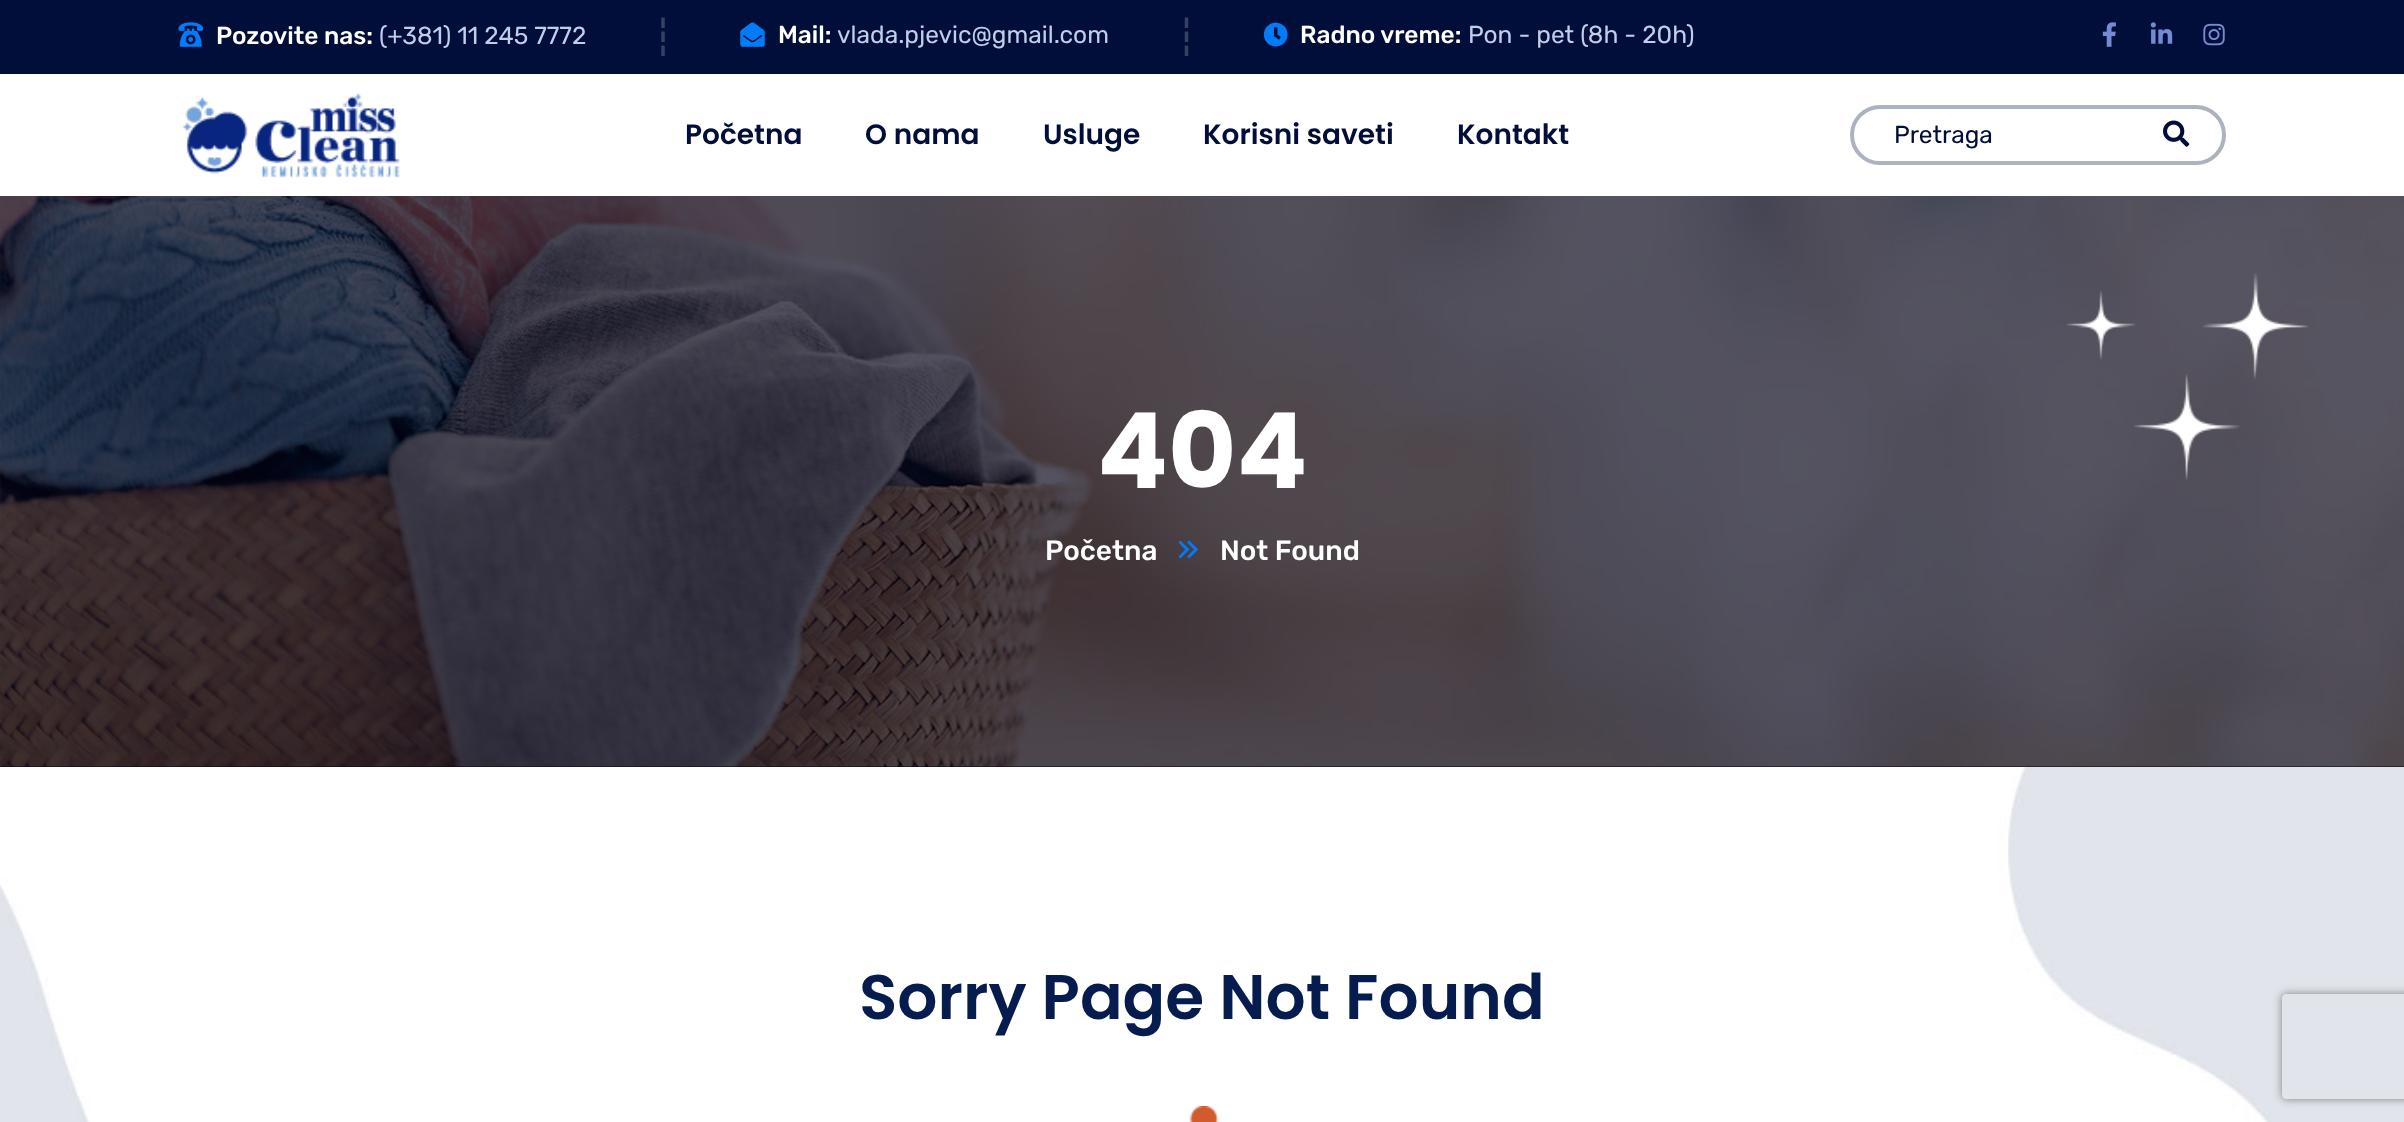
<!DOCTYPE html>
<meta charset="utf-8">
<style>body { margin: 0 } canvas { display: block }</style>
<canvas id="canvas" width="2404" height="1122"></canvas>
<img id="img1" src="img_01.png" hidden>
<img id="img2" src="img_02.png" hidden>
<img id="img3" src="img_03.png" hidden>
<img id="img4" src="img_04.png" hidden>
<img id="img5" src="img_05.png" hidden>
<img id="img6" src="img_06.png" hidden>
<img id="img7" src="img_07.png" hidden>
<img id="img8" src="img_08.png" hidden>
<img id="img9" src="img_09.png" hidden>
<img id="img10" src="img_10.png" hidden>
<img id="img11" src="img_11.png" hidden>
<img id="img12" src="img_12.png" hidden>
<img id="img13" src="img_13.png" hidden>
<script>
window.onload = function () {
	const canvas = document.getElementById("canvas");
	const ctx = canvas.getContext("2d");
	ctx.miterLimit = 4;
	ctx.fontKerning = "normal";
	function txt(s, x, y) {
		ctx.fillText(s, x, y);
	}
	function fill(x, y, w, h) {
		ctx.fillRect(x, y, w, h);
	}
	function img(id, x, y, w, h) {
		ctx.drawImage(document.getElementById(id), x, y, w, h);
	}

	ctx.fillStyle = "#FFFFFF";
	fill(0, 0, 2404, 1122);
	ctx.fillStyle = "#000E39";
	fill(0, 0, 2404, 74);
	img("img1", 178, 22, 26, 25);
	ctx.beginPath();
	ctx.moveTo(663, 17.5);
	ctx.lineTo(663, 28);
	ctx.moveTo(663, 31.5);
	ctx.lineTo(663, 42);
	ctx.moveTo(663, 45.5);
	ctx.lineTo(663, 56);
	ctx.strokeStyle = "#354062";
	ctx.lineWidth = 3.5;
	ctx.stroke();
	img("img2", 740, 22, 25, 25);
	ctx.beginPath();
	ctx.moveTo(1186.5, 17.5);
	ctx.lineTo(1186.5, 28);
	ctx.moveTo(1186.5, 31.5);
	ctx.lineTo(1186.5, 42);
	ctx.moveTo(1186.5, 45.5);
	ctx.lineTo(1186.5, 56);
	ctx.stroke();
	img("img3", 1263, 22, 25, 25);
	img("img4", 2102, 22, 14, 25);
	img("img5", 2150, 22, 23, 22);
	img("img6", 2203, 23, 22, 23);
	img("img7", 182, 92, 218, 86);
	ctx.beginPath();
	ctx.roundRect(1852, 107, 372, 56, 28);
	ctx.strokeStyle = "#ADB2BF";
	ctx.lineWidth = 4;
	ctx.stroke();
	img("img8", 2163, 120, 27, 27);
	ctx.fillStyle = "#0E0E0E";
	fill(0, 766, 2404, 1);
	img("img9", 0, 196, 2404, 571);
	ctx.fillStyle = "rgba(3, 0, 20, 0.67)";
	fill(0, 196, 2404, 571);
	img("img10", 2066, 273, 243, 207);
	img("img11", 1178, 540, 20, 19);
	img("img12", 0, 767, 2404, 355);
	img("img13", 1189, 1106, 30, 16);
	ctx.save();
	ctx.beginPath();
	ctx.moveTo(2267, 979);
	ctx.lineTo(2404, 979);
	ctx.lineTo(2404, 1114);
	ctx.lineTo(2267, 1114);
	ctx.closePath();
	ctx.moveTo(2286, 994);
	ctx.lineTo(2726, 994);
	ctx.bezierCurveTo(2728, 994, 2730, 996, 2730, 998);
	ctx.lineTo(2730, 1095);
	ctx.bezierCurveTo(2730, 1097, 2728, 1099, 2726, 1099);
	ctx.lineTo(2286, 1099);
	ctx.bezierCurveTo(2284, 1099, 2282, 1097, 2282, 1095);
	ctx.lineTo(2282, 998);
	ctx.bezierCurveTo(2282, 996, 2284, 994, 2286, 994);
	ctx.closePath();
	ctx.clip("evenodd");
	ctx.fillStyle = "#808080";
	ctx.filter = "blur(4.5px)";
	ctx.beginPath();
	ctx.roundRect(2282, 994, 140, 105, 4);
	ctx.fill();
	ctx.filter = "none";
	ctx.restore();
	ctx.font = "500 24.5px Rubik";
	ctx.fillStyle = "#FFFFFF";
	txt("Pozovite nas:", 216, 44);
	ctx.font = "24.5px Rubik";
	ctx.fillStyle = "#C2CDEB";
	txt("(+381) 11 245 7772", 379, 44);
	ctx.font = "500 24.5px Rubik";
	ctx.fillStyle = "#FFFFFF";
	txt("Mail:", 778, 43);
	ctx.font = "24.5px Rubik";
	ctx.fillStyle = "#C2CDEB";
	txt("vlada.pjevic@gmail.com", 837, 43);
	ctx.font = "500 24.5px Rubik";
	ctx.fillStyle = "#FFFFFF";
	txt("Radno vreme:", 1300, 43);
	ctx.font = "24.5px Rubik";
	ctx.fillStyle = "#C2CDEB";
	txt("Pon - pet (8h - 20h)", 1468, 43);
	ctx.font = "600 28px Poppins";
	ctx.fillStyle = "#000E39";
	txt("Početna", 685, 144);
	txt("O nama", 865, 144);
	txt("Usluge", 1043, 144);
	txt("Korisni saveti", 1203, 144);
	txt("Kontakt", 1457, 144);
	ctx.font = "24.5px Rubik";
	txt("Pretraga", 1894, 143);
	ctx.font = "bold 105px Poppins";
	ctx.fillStyle = "#FFFFFF";
	txt("404", 1097, 488);
	ctx.font = "500 28px Rubik";
	txt("Početna", 1045, 560);
	txt("Not Found", 1220, 560);
	ctx.font = "600 63px Poppins";
	ctx.fillStyle = "#061C4F";
	txt("Sorry Page Not Found", 859, 1019);
};
</script>
